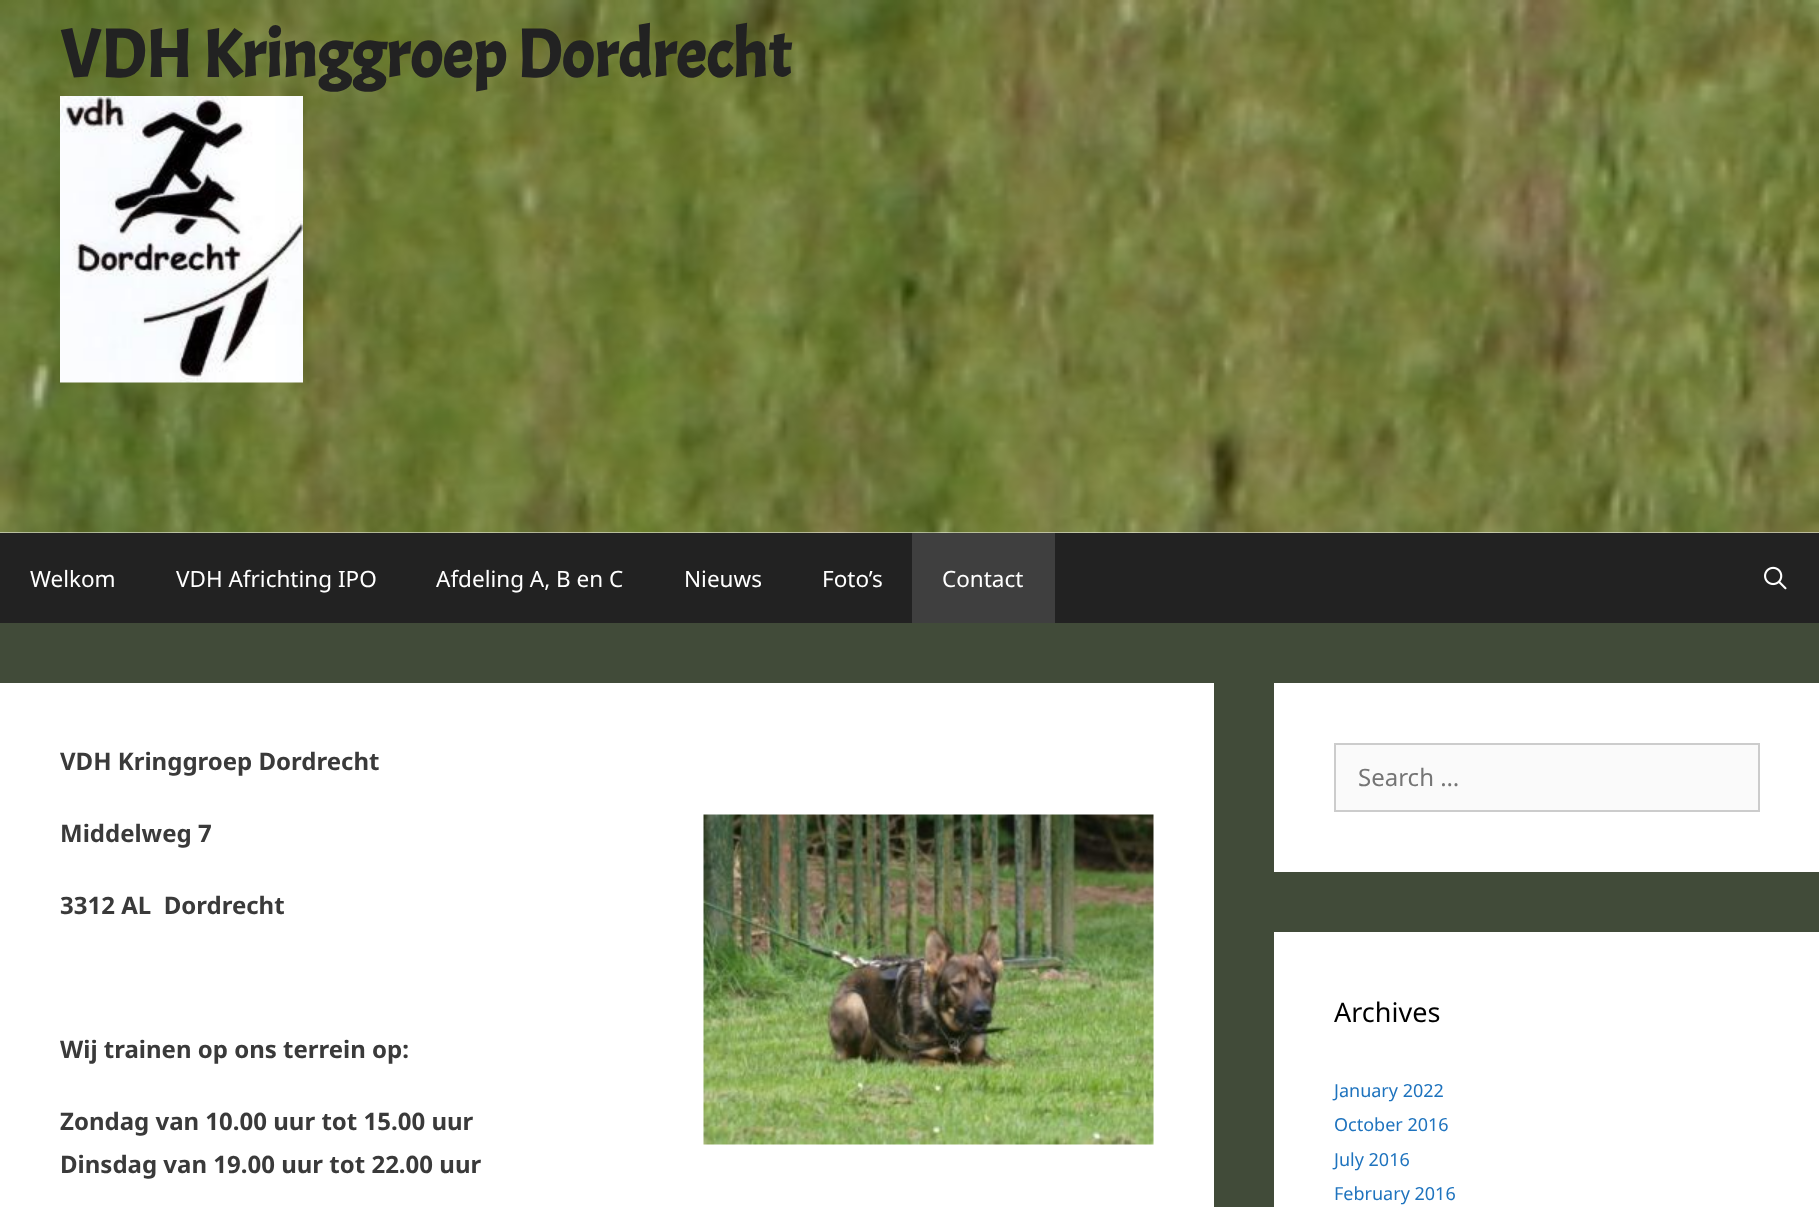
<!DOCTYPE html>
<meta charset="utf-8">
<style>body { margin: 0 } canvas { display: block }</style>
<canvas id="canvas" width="1819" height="1207"></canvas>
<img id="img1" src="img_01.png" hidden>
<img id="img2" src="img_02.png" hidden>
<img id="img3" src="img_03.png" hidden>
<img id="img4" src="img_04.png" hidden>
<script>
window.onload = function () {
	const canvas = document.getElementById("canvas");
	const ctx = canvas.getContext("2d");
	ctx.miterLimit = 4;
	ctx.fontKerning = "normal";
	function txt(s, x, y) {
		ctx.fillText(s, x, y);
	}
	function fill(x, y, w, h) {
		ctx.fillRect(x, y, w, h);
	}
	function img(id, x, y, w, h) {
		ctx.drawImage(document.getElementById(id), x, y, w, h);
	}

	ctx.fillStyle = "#414B39";
	fill(0, 0, 1819, 1207);
	ctx.fillStyle = "#FFFFFF";
	fill(0, 532, 1819, 1);
	img("img1", 0, 0, 1819, 533);
	img("img2", 60, 96, 243, 287);
	ctx.fillStyle = "#222222";
	fill(0, 533, 1819, 90);
	ctx.fillStyle = "#3F3F3F";
	fill(912, 533, 143, 90);
	img("img3", 1764, 566, 23, 24);
	ctx.fillStyle = "#FFFFFF";
	fill(0, 683, 1214, 524);
	img("img4", 703, 814, 451, 331);
	fill(1274, 683, 545, 189);
	ctx.fillStyle = "#FAFAFA";
	ctx.beginPath();
	ctx.rect(1335, 744, 424, 67);
	ctx.fill();
	ctx.strokeStyle = "#CCCCCC";
	ctx.lineWidth = 2;
	ctx.stroke();
	ctx.fillStyle = "#FFFFFF";
	fill(1274, 932, 545, 275);
	ctx.font = "bold 67.5px Acme";
	ctx.fillStyle = "#222222";
	txt("VDH Kringgroep Dordrecht", 60, 77);
	ctx.font = "22.5px Noto Sans";
	ctx.fillStyle = "#FFFFFF";
	txt("Welkom", 30, 587);
	txt("VDH Africhting IPO", 176, 587);
	txt("Afdeling A, B en C", 436, 587);
	txt("Nieuws", 684, 587);
	txt("Foto’s", 822, 587);
	txt("Contact", 942, 587);
	ctx.font = "bold 24px Noto Sans";
	ctx.fillStyle = "#3A3A3A";
	txt("VDH Kringgroep Dordrecht", 60, 770);
	txt("Middelweg 7", 60, 842);
	txt("3312 AL  Dordrecht", 60, 914);
	txt("Wij trainen op ons terrein op:", 60, 1058);
	txt("Zondag van 10.00 uur tot 15.00 uur", 60, 1130);
	txt("Dinsdag van 19.00 uur tot 22.00 uur", 60, 1173);
	ctx.font = "24px Noto Sans";
	ctx.fillStyle = "#757575";
	txt("Search …", 1358, 786);
	ctx.font = "27px Noto Sans";
	ctx.fillStyle = "#000000";
	txt("Archives", 1334, 1022);
	ctx.font = "18px Noto Sans";
	ctx.fillStyle = "#1E73BE";
	txt("January 2022", 1334, 1097);
	txt("October 2016", 1334, 1131);
	txt("July 2016", 1334, 1166);
	txt("February 2016", 1334, 1200);
};
</script>
